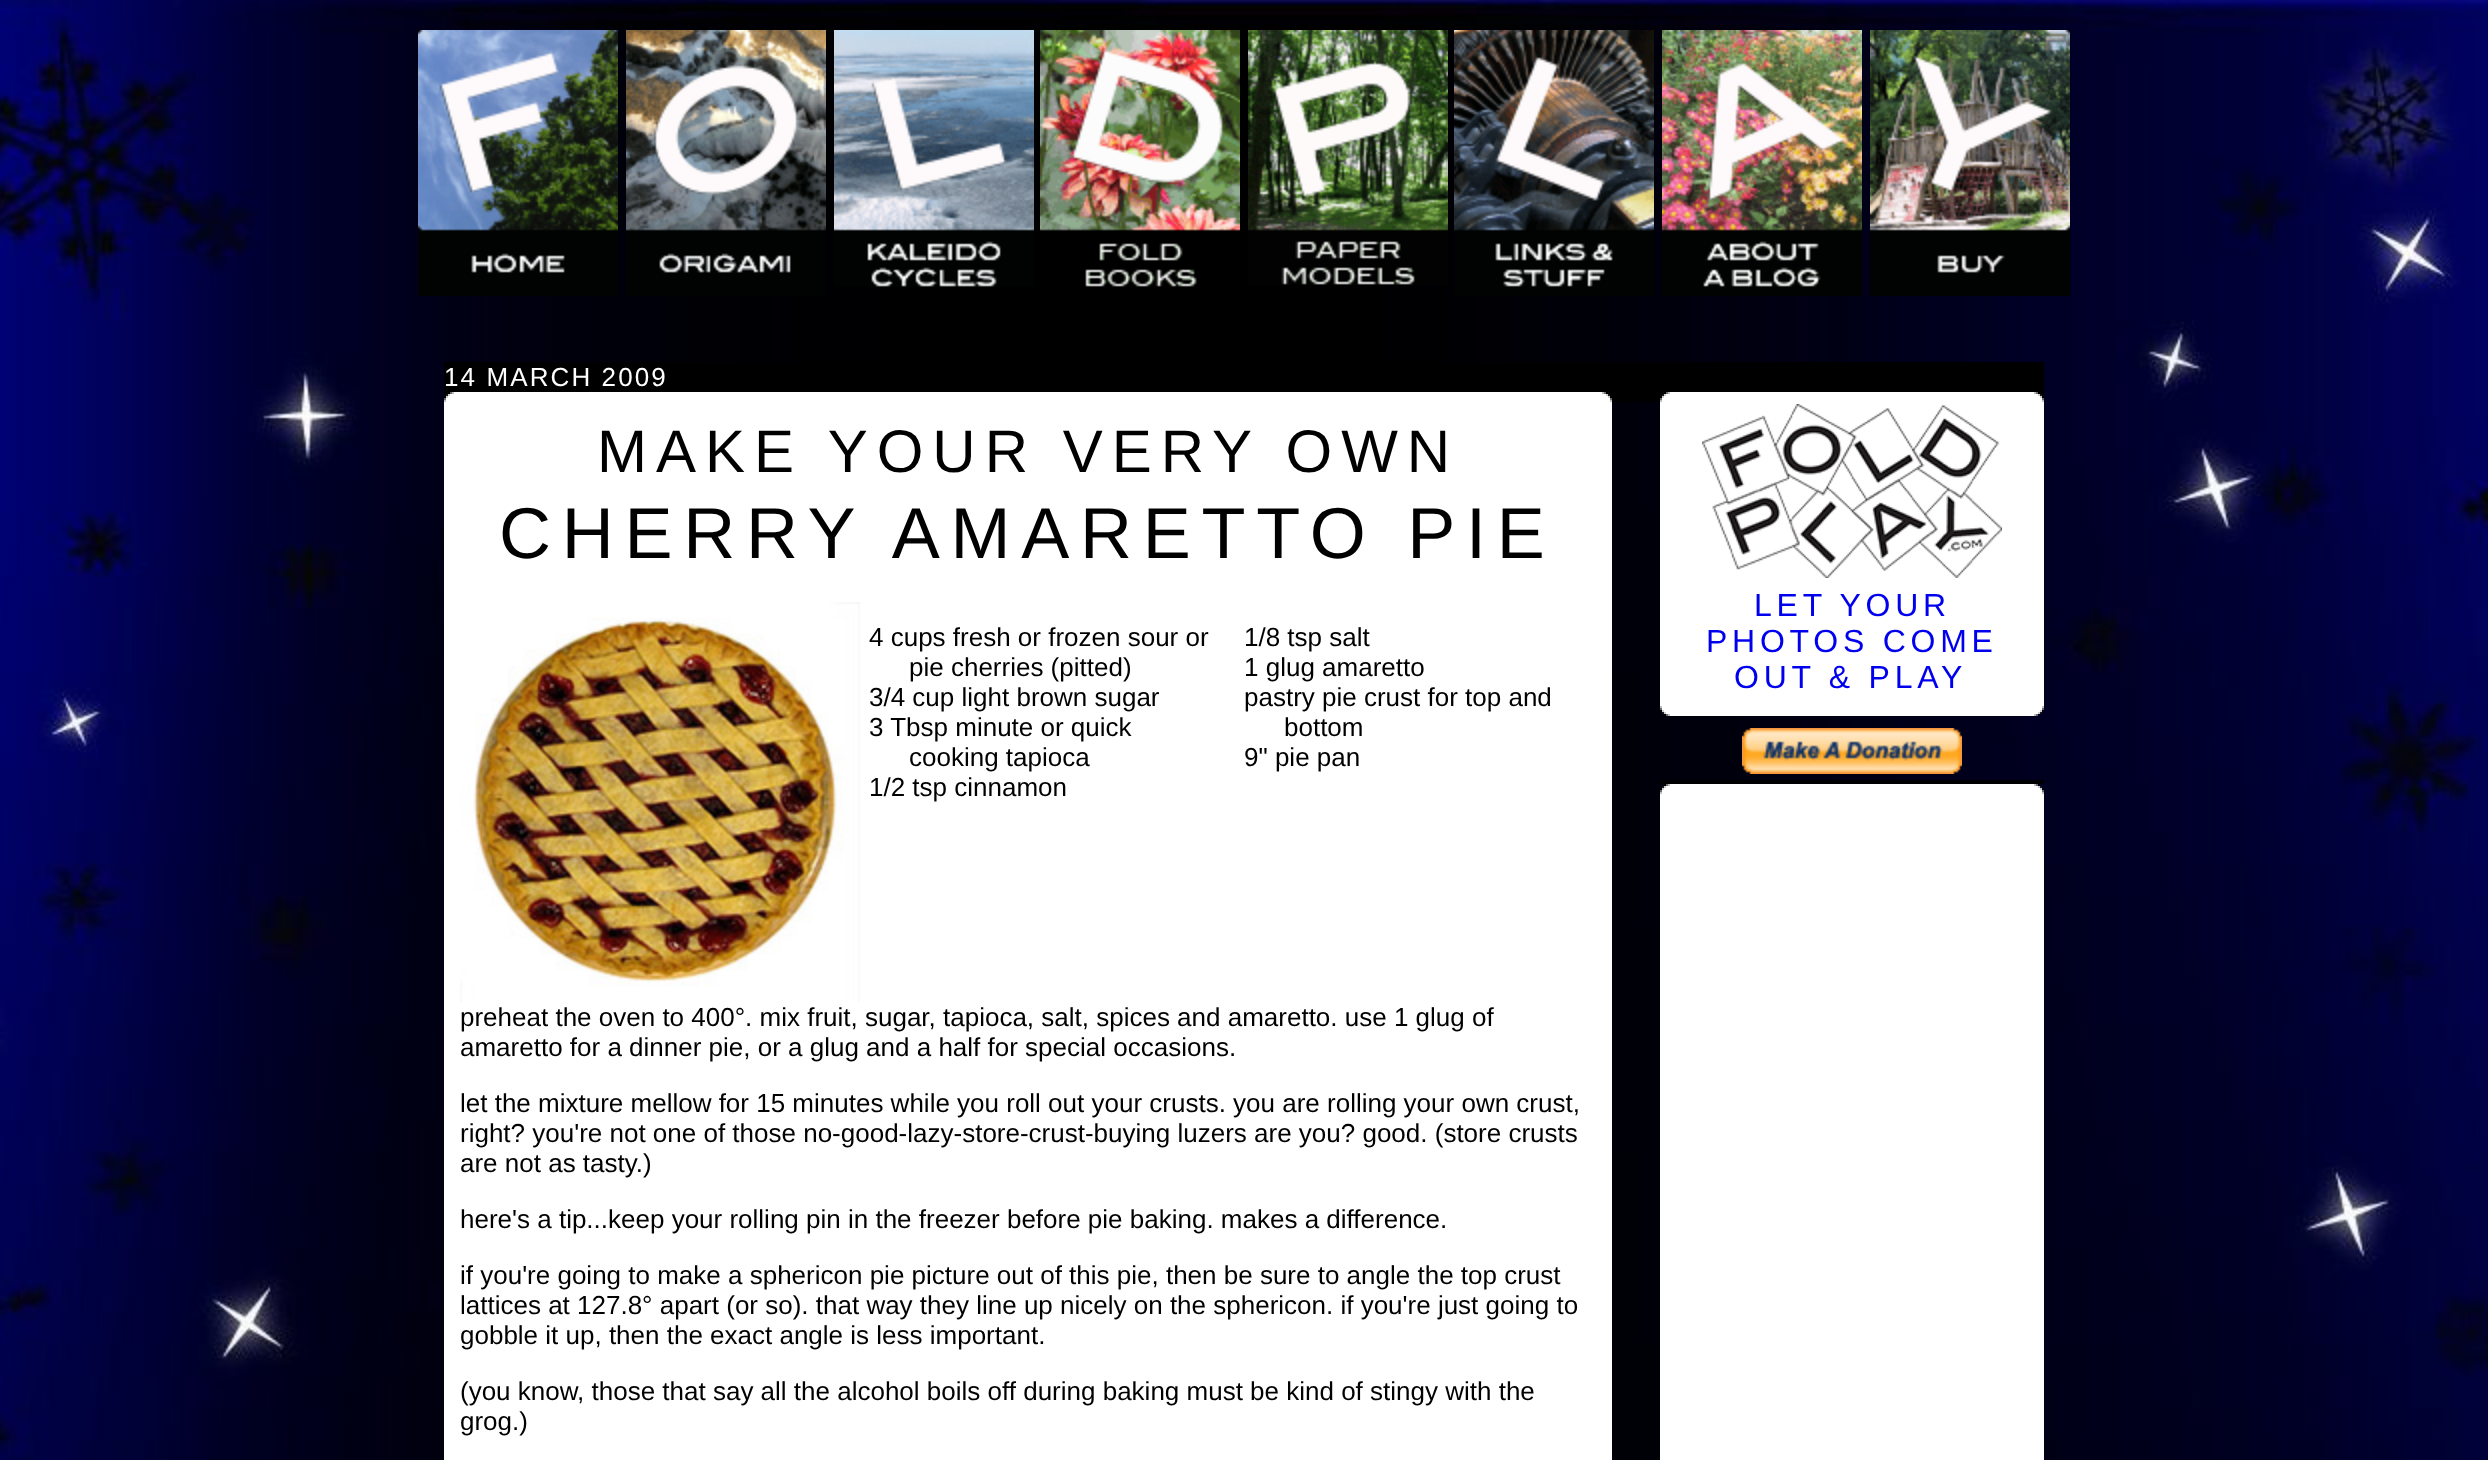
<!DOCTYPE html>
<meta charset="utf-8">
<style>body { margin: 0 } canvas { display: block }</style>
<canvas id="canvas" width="2488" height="1460"></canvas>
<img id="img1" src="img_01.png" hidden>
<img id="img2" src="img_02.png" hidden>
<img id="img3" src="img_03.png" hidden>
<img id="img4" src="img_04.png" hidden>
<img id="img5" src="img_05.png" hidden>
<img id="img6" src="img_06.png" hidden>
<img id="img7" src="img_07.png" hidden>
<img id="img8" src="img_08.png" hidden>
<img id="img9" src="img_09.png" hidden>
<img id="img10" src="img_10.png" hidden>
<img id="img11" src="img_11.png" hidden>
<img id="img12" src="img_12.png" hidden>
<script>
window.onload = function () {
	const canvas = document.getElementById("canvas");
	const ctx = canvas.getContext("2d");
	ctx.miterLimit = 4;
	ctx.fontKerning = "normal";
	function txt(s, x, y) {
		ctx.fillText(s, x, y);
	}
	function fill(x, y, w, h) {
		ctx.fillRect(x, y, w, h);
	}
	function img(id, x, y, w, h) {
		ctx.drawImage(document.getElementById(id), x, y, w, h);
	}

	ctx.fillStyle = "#FFFFFF";
	fill(0, 0, 2488, 1460);
	img("img1", 0, 0, 2488, 1460);
	img("img2", 418, 30, 200, 266);
	img("img3", 626, 30, 200, 266);
	img("img4", 834, 30, 200, 257);
	img("img5", 1040, 30, 200, 257);
	img("img6", 1248, 30, 200, 255);
	img("img7", 1454, 30, 200, 266);
	img("img8", 1662, 30, 200, 266);
	img("img9", 1870, 30, 200, 266);
	ctx.fillStyle = "#000000";
	fill(444, 362, 1600, 40);
	ctx.fillStyle = "#BFBFBF";
	fill(450, 392, 1156, 2);
	ctx.fillStyle = "#6D6D6D";
	fill(1604, 392, 2, 2);
	fill(450, 392, 2, 2);
	ctx.fillStyle = "#FFFFFF";
	fill(454, 392, 1148, 2);
	ctx.fillStyle = "#CECECE";
	fill(446, 394, 1164, 2);
	ctx.fillStyle = "#191919";
	fill(1608, 394, 2, 2);
	fill(446, 394, 2, 2);
	ctx.fillStyle = "#FFFFFF";
	fill(450, 394, 1156, 2);
	fill(446, 396, 1164, 2);
	ctx.fillStyle = "#CECECE";
	fill(1608, 396, 2, 2);
	fill(446, 396, 2, 2);
	ctx.fillStyle = "#FFFFFF";
	fill(444, 398, 1168, 4);
	ctx.fillStyle = "#6D6D6D";
	fill(1610, 398, 2, 2);
	fill(444, 398, 2, 2);
	ctx.fillStyle = "#BFBFBF";
	fill(1610, 400, 2, 2);
	fill(444, 400, 2, 2);
	ctx.fillStyle = "#FFFFFF";
	fill(444, 402, 1168, 1058);
	img("img10", 460, 602, 400, 400);
	ctx.fillStyle = "#BFBFBF";
	fill(1666, 392, 372, 2);
	ctx.fillStyle = "#6D6D6D";
	fill(2036, 392, 2, 2);
	fill(1666, 392, 2, 2);
	ctx.fillStyle = "#FFFFFF";
	fill(1670, 392, 364, 2);
	ctx.fillStyle = "#CECECE";
	fill(1662, 394, 380, 2);
	ctx.fillStyle = "#191919";
	fill(2040, 394, 2, 2);
	fill(1662, 394, 2, 2);
	ctx.fillStyle = "#FFFFFF";
	fill(1666, 394, 372, 2);
	fill(1662, 396, 380, 2);
	ctx.fillStyle = "#CECECE";
	fill(2040, 396, 2, 2);
	fill(1662, 396, 2, 2);
	ctx.fillStyle = "#FFFFFF";
	fill(1660, 398, 384, 4);
	ctx.fillStyle = "#6D6D6D";
	fill(2042, 398, 2, 2);
	fill(1660, 398, 2, 2);
	ctx.fillStyle = "#BFBFBF";
	fill(2042, 400, 2, 2);
	fill(1660, 400, 2, 2);
	ctx.fillStyle = "#FFFFFF";
	fill(1660, 402, 384, 308);
	img("img11", 1702, 404, 300, 174);
	ctx.fillStyle = "#BFBFBF";
	fill(2042, 706, 2, 2);
	fill(1660, 706, 2, 2);
	ctx.fillStyle = "#6D6D6D";
	fill(2042, 708, 2, 2);
	fill(1660, 708, 2, 2);
	ctx.fillStyle = "#FFFFFF";
	fill(1662, 710, 380, 2);
	ctx.fillStyle = "#CECECE";
	fill(2040, 710, 2, 2);
	fill(1662, 710, 2, 2);
	fill(1662, 712, 380, 2);
	ctx.fillStyle = "#191919";
	fill(2040, 712, 2, 2);
	fill(1662, 712, 2, 2);
	ctx.fillStyle = "#FFFFFF";
	fill(1666, 712, 372, 2);
	ctx.fillStyle = "#BFBFBF";
	fill(1666, 714, 372, 2);
	ctx.fillStyle = "#6D6D6D";
	fill(2036, 714, 2, 2);
	fill(1666, 714, 2, 2);
	ctx.fillStyle = "#FFFFFF";
	fill(1670, 714, 364, 2);
	img("img12", 1742, 728, 220, 46);
	ctx.fillStyle = "#000000";
	fill(1660, 780, 384, 4);
	ctx.fillStyle = "#BFBFBF";
	fill(1666, 784, 372, 2);
	ctx.fillStyle = "#6D6D6D";
	fill(2036, 784, 2, 2);
	fill(1666, 784, 2, 2);
	ctx.fillStyle = "#FFFFFF";
	fill(1670, 784, 364, 2);
	ctx.fillStyle = "#CECECE";
	fill(1662, 786, 380, 2);
	ctx.fillStyle = "#191919";
	fill(2040, 786, 2, 2);
	fill(1662, 786, 2, 2);
	ctx.fillStyle = "#FFFFFF";
	fill(1666, 786, 372, 2);
	fill(1662, 788, 380, 2);
	ctx.fillStyle = "#CECECE";
	fill(2040, 788, 2, 2);
	fill(1662, 788, 2, 2);
	ctx.fillStyle = "#FFFFFF";
	fill(1660, 790, 384, 4);
	ctx.fillStyle = "#6D6D6D";
	fill(2042, 790, 2, 2);
	fill(1660, 790, 2, 2);
	ctx.fillStyle = "#BFBFBF";
	fill(2042, 792, 2, 2);
	fill(1660, 792, 2, 2);
	ctx.fillStyle = "#FFFFFF";
	fill(1660, 794, 384, 666);
	ctx.letterSpacing = "2.1px";
	ctx.font = "26px Liberation Sans";
	txt("14 MARCH 2009", 444, 386);
	ctx.letterSpacing = "9px";
	ctx.font = "60px Liberation Sans";
	ctx.fillStyle = "#000000";
	txt("MAKE YOUR VERY OWN", 597, 472);
	ctx.letterSpacing = "10.75px";
	ctx.font = "72px Liberation Sans";
	txt("CHERRY AMARETTO PIE", 499, 558);
	ctx.letterSpacing = "0px";
	ctx.font = "26px Liberation Sans";
	txt("4 cups fresh or frozen sour or", 869, 646);
	txt("pie cherries (pitted)", 909, 676);
	txt("3/4 cup light brown sugar", 869, 706);
	txt("3 Tbsp minute or quick", 869, 736);
	txt("cooking tapioca", 909, 766);
	txt("1/2 tsp cinnamon", 869, 796);
	txt("1/8 tsp salt", 1244, 646);
	txt("1 glug amaretto", 1244, 676);
	txt("pastry pie crust for top and", 1244, 706);
	txt("bottom", 1284, 736);
	txt("9\" pie pan", 1244, 766);
	txt("preheat the oven to 400°. mix fruit, sugar, tapioca, salt, spices and amaretto. use 1 glug of", 460, 1026);
	txt("amaretto for a dinner pie, or a glug and a half for special occasions.", 460, 1056);
	txt("let the mixture mellow for 15 minutes while you roll out your crusts. you are rolling your own crust,", 460, 1112);
	txt("right? you're not one of those no-good-lazy-store-crust-buying luzers are you? good. (store crusts", 460, 1142);
	txt("are not as tasty.)", 460, 1172);
	txt("here's a tip...keep your rolling pin in the freezer before pie baking. makes a difference.", 460, 1228);
	txt("if you're going to make a sphericon pie picture out of this pie, then be sure to angle the top crust", 460, 1284);
	txt("lattices at 127.8° apart (or so). that way they line up nicely on the sphericon. if you're just going to", 460, 1314);
	txt("gobble it up, then the exact angle is less important.", 460, 1344);
	txt("(you know, those that say all the alcohol boils off during baking must be kind of stingy with the", 460, 1400);
	txt("grog.)", 460, 1430);
	ctx.letterSpacing = "4.75px";
	ctx.font = "32px Liberation Sans";
	ctx.fillStyle = "#0000EE";
	txt("LET YOUR", 1754, 616);
	txt("PHOTOS COME", 1706, 652);
	txt("OUT & PLAY", 1734, 688);
};
</script>
